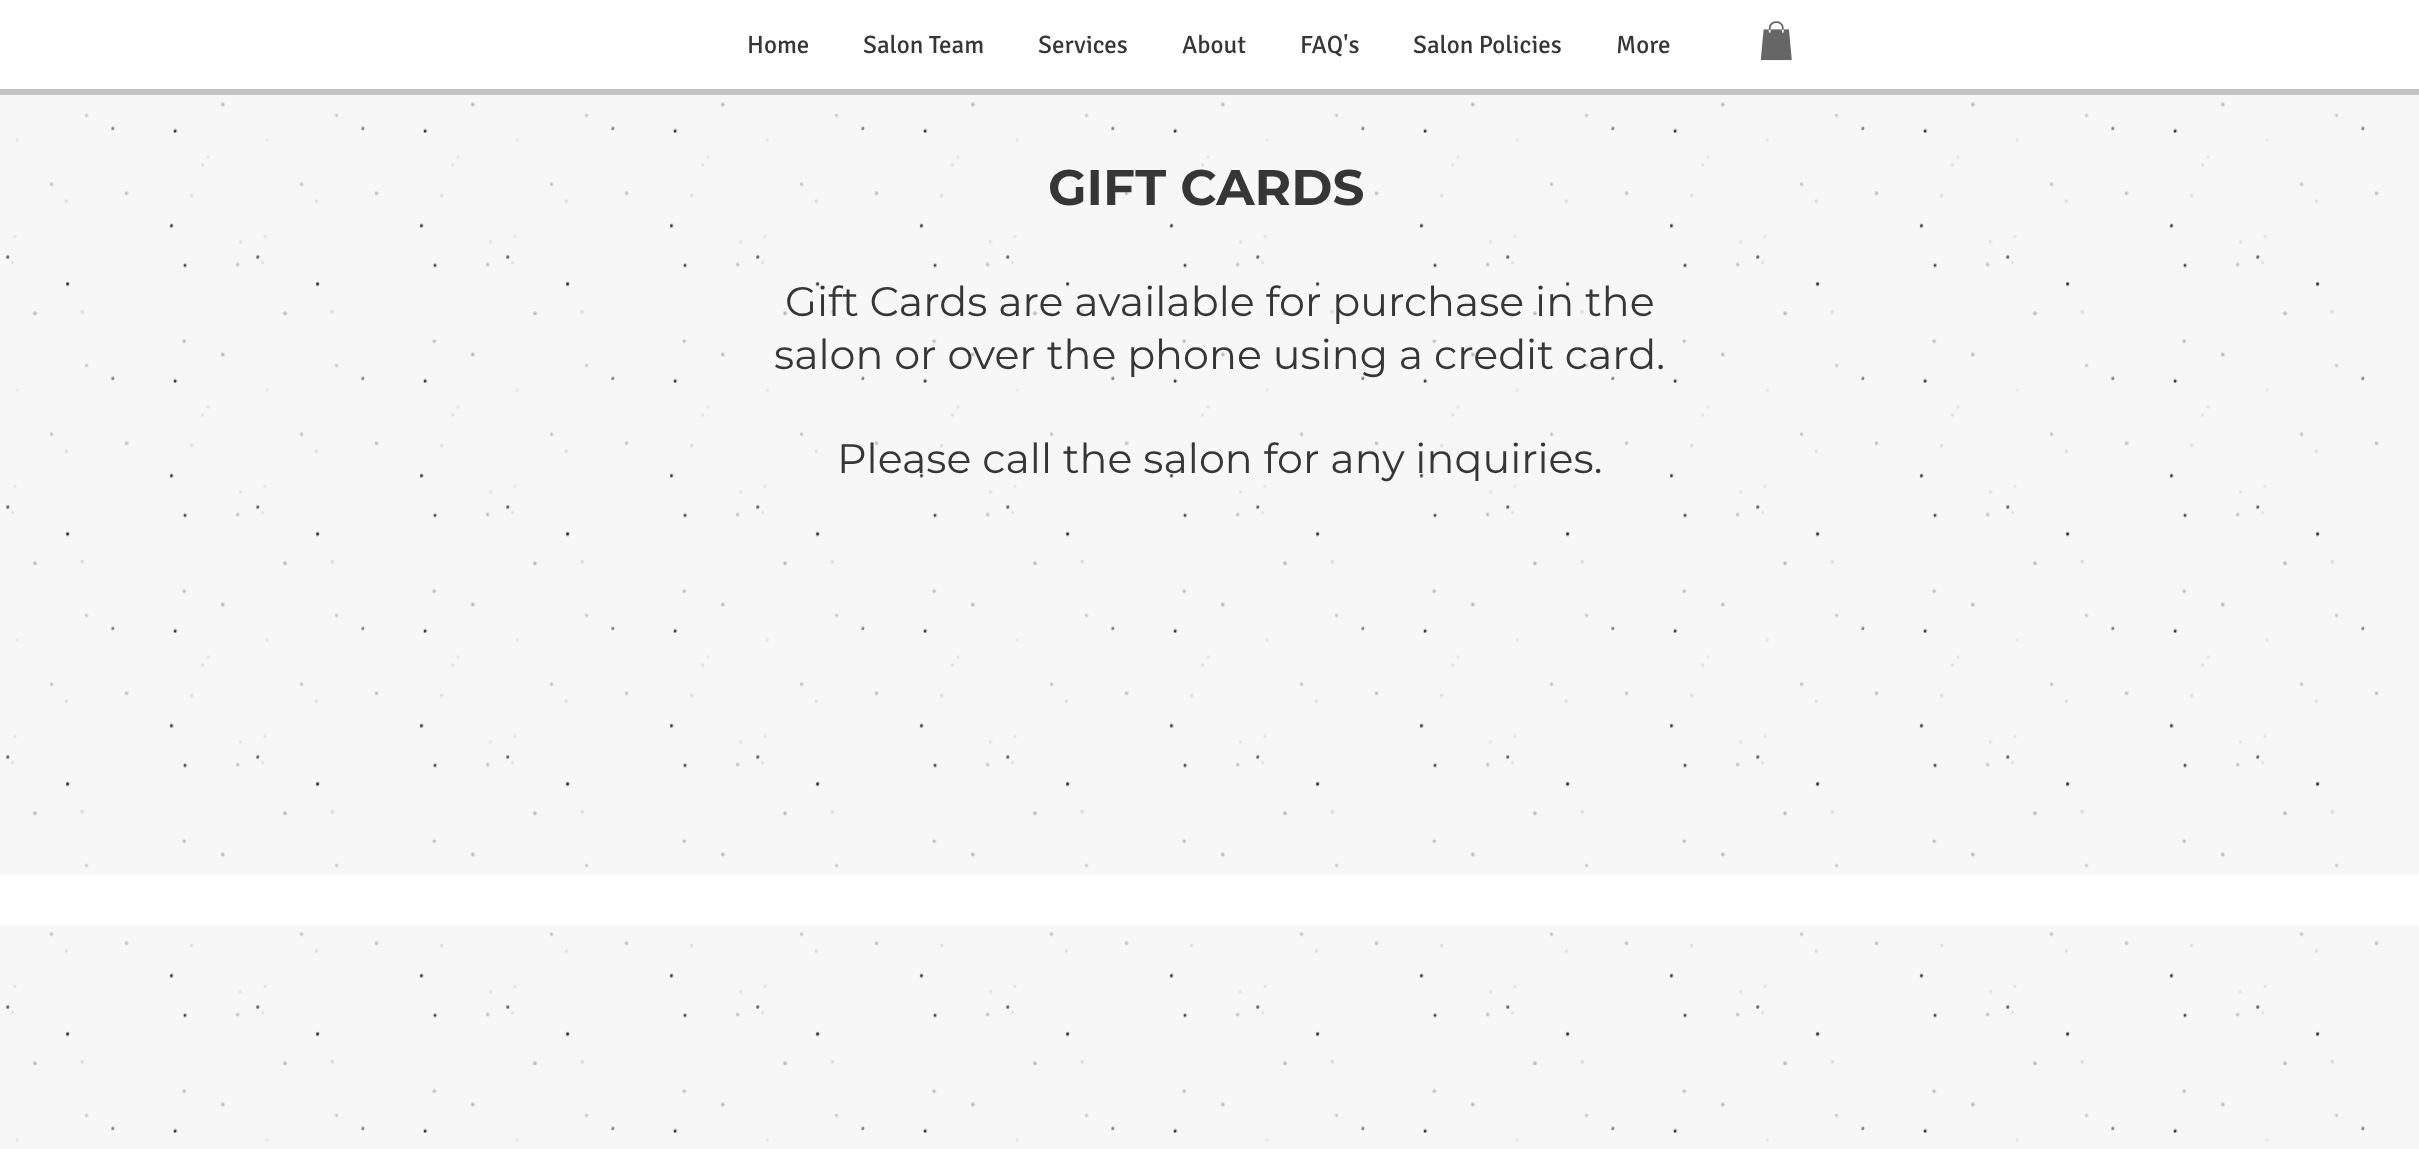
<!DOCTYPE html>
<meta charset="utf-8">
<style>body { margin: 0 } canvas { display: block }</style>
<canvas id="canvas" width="2419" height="1149"></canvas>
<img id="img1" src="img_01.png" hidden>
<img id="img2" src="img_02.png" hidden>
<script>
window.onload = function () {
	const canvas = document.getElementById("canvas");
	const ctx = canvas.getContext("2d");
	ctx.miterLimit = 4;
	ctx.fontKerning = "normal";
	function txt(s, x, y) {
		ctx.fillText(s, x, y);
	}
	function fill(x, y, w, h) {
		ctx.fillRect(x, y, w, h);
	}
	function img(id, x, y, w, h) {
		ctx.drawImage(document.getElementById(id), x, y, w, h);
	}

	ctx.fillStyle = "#F7F7F7";
	fill(0, 0, 2419, 1149);
	ctx.fillStyle = "#C4C4C4";
	fill(0, 89, 2419, 6);
	ctx.fillStyle = "#FFFFFF";
	fill(0, 0, 2419, 89);
	img("img1", 1760, 21, 32, 40);
	img("img2", 6, 102, 2373, 1040);
	fill(0, 875, 2419, 50);
	ctx.font = "25px Signika";
	ctx.fillStyle = "#363636";
	txt("Home", 747, 53);
	txt("Salon Team", 863, 53);
	txt("Services", 1038, 53);
	txt("About", 1182, 53);
	txt("FAQ's", 1300, 53);
	txt("Salon Policies", 1413, 53);
	txt("More", 1616, 53);
	ctx.font = "bold 50px Montserrat";
	txt("GIFT CARDS", 1048, 205);
	ctx.font = "41.25px Montserrat";
	txt("Gift Cards are available for purchase in the", 785, 316);
	txt("salon or over the phone using a credit card.", 774, 369);
	txt("Please call the salon for any inquiries.", 837, 473);
};
</script>
